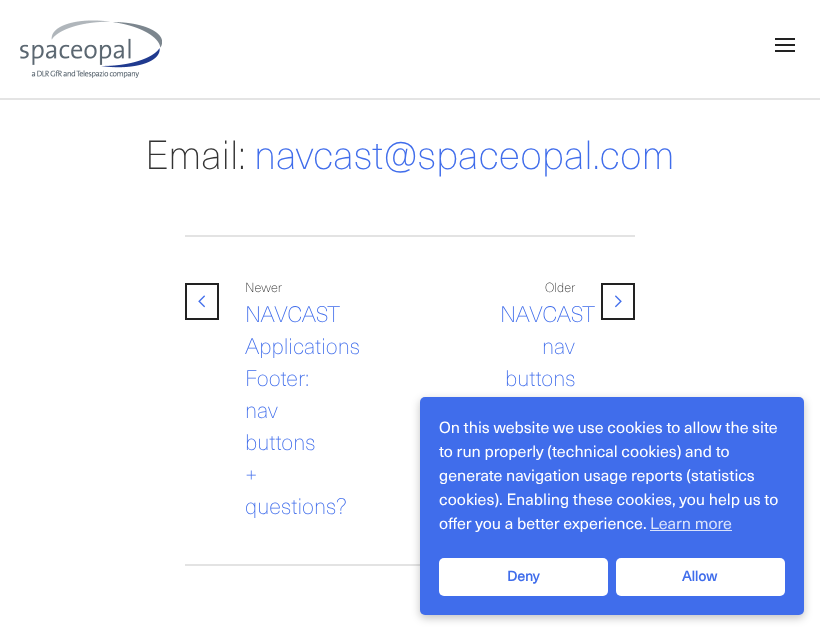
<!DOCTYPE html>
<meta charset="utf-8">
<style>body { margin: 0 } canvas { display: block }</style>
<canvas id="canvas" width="820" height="631"></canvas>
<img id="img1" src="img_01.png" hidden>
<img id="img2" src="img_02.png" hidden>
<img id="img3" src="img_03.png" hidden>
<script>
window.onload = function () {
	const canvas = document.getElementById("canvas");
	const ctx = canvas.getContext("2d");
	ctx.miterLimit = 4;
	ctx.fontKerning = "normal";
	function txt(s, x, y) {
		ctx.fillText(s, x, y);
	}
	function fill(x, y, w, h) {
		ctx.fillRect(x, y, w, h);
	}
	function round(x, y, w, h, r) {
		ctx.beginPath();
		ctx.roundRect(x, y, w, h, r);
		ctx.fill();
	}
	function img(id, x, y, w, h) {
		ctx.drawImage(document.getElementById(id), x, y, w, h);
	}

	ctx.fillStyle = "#FFFFFF";
	fill(0, 0, 820, 631);
	ctx.fillStyle = "#E4E4E4";
	fill(0, 98, 820, 2);
	img("img1", 20, 20, 142, 58);
	ctx.fillStyle = "#222222";
	fill(775, 44, 20, 2);
	fill(775, 38, 20, 2);
	fill(775, 50, 20, 2);
	ctx.fillStyle = "#E3E3E3";
	fill(185, 235, 450, 2);
	fill(185, 564, 235, 2);
	ctx.strokeStyle = "#222222";
	ctx.lineWidth = 2;
	ctx.strokeRect(186, 284, 32, 35);
	img("img2", 198, 295, 7, 13);
	ctx.strokeRect(602, 284, 32, 35);
	img("img3", 615, 295, 7, 13);
	ctx.fillStyle = "rgba(0, 0, 0, 0.24)";
	ctx.filter = "blur(4px)";
	ctx.beginPath();
	ctx.roundRect(420, 400, 384, 218, 5);
	ctx.fill();
	ctx.filter = "none";
	ctx.fillStyle = "#406DEB";
	round(420, 397, 384, 218, 5);
	ctx.fillStyle = "#D9E2FB";
	fill(650, 530, 82, 1);
	ctx.fillStyle = "#FFFFFF";
	round(439, 558, 169, 38, 5);
	round(616, 558, 169, 38, 5);
	ctx.font = "40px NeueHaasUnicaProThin";
	ctx.fillStyle = "#333333";
	txt("Email:", 145, 169);
	ctx.fillStyle = "#406DEB";
	txt("navcast@spaceopal.com", 254, 169);
	ctx.font = "13px NeueHaasUnicaProThin";
	ctx.fillStyle = "#222222";
	txt("Newer", 245, 292);
	ctx.font = "22px NeueHaasUnicaProThin";
	ctx.fillStyle = "#406DEB";
	txt("NAVCAST", 245, 322);
	txt("Applications", 245, 354);
	txt("Footer:", 245, 386);
	txt("nav", 245, 418);
	txt("buttons", 245, 450);
	txt("+", 245, 482);
	txt("questions?", 245, 514);
	ctx.font = "13px NeueHaasUnicaProThin";
	ctx.fillStyle = "#222222";
	txt("Older", 545, 292);
	ctx.font = "22px NeueHaasUnicaProThin";
	ctx.fillStyle = "#406DEB";
	txt("NAVCAST", 500, 322);
	txt("nav", 542, 354);
	txt("buttons", 505, 386);
	ctx.font = "16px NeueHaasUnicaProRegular";
	ctx.fillStyle = "#FFFFFF";
	txt("On this website we use cookies to allow the site", 439, 433);
	txt("to run properly (technical cookies) and to", 439, 457);
	txt("generate navigation usage reports (statistics", 439, 481);
	txt("cookies). Enabling these cookies, you help us to", 439, 505);
	txt("offer you a better experience.", 439, 529);
	ctx.fillStyle = "#D9E2FB";
	txt("Learn more", 650, 529);
	ctx.font = "bold 14px NeueHaasUnicaProRegular";
	ctx.fillStyle = "#406DEB";
	txt("Deny", 507, 581);
	txt("Allow", 682, 581);
};
</script>
